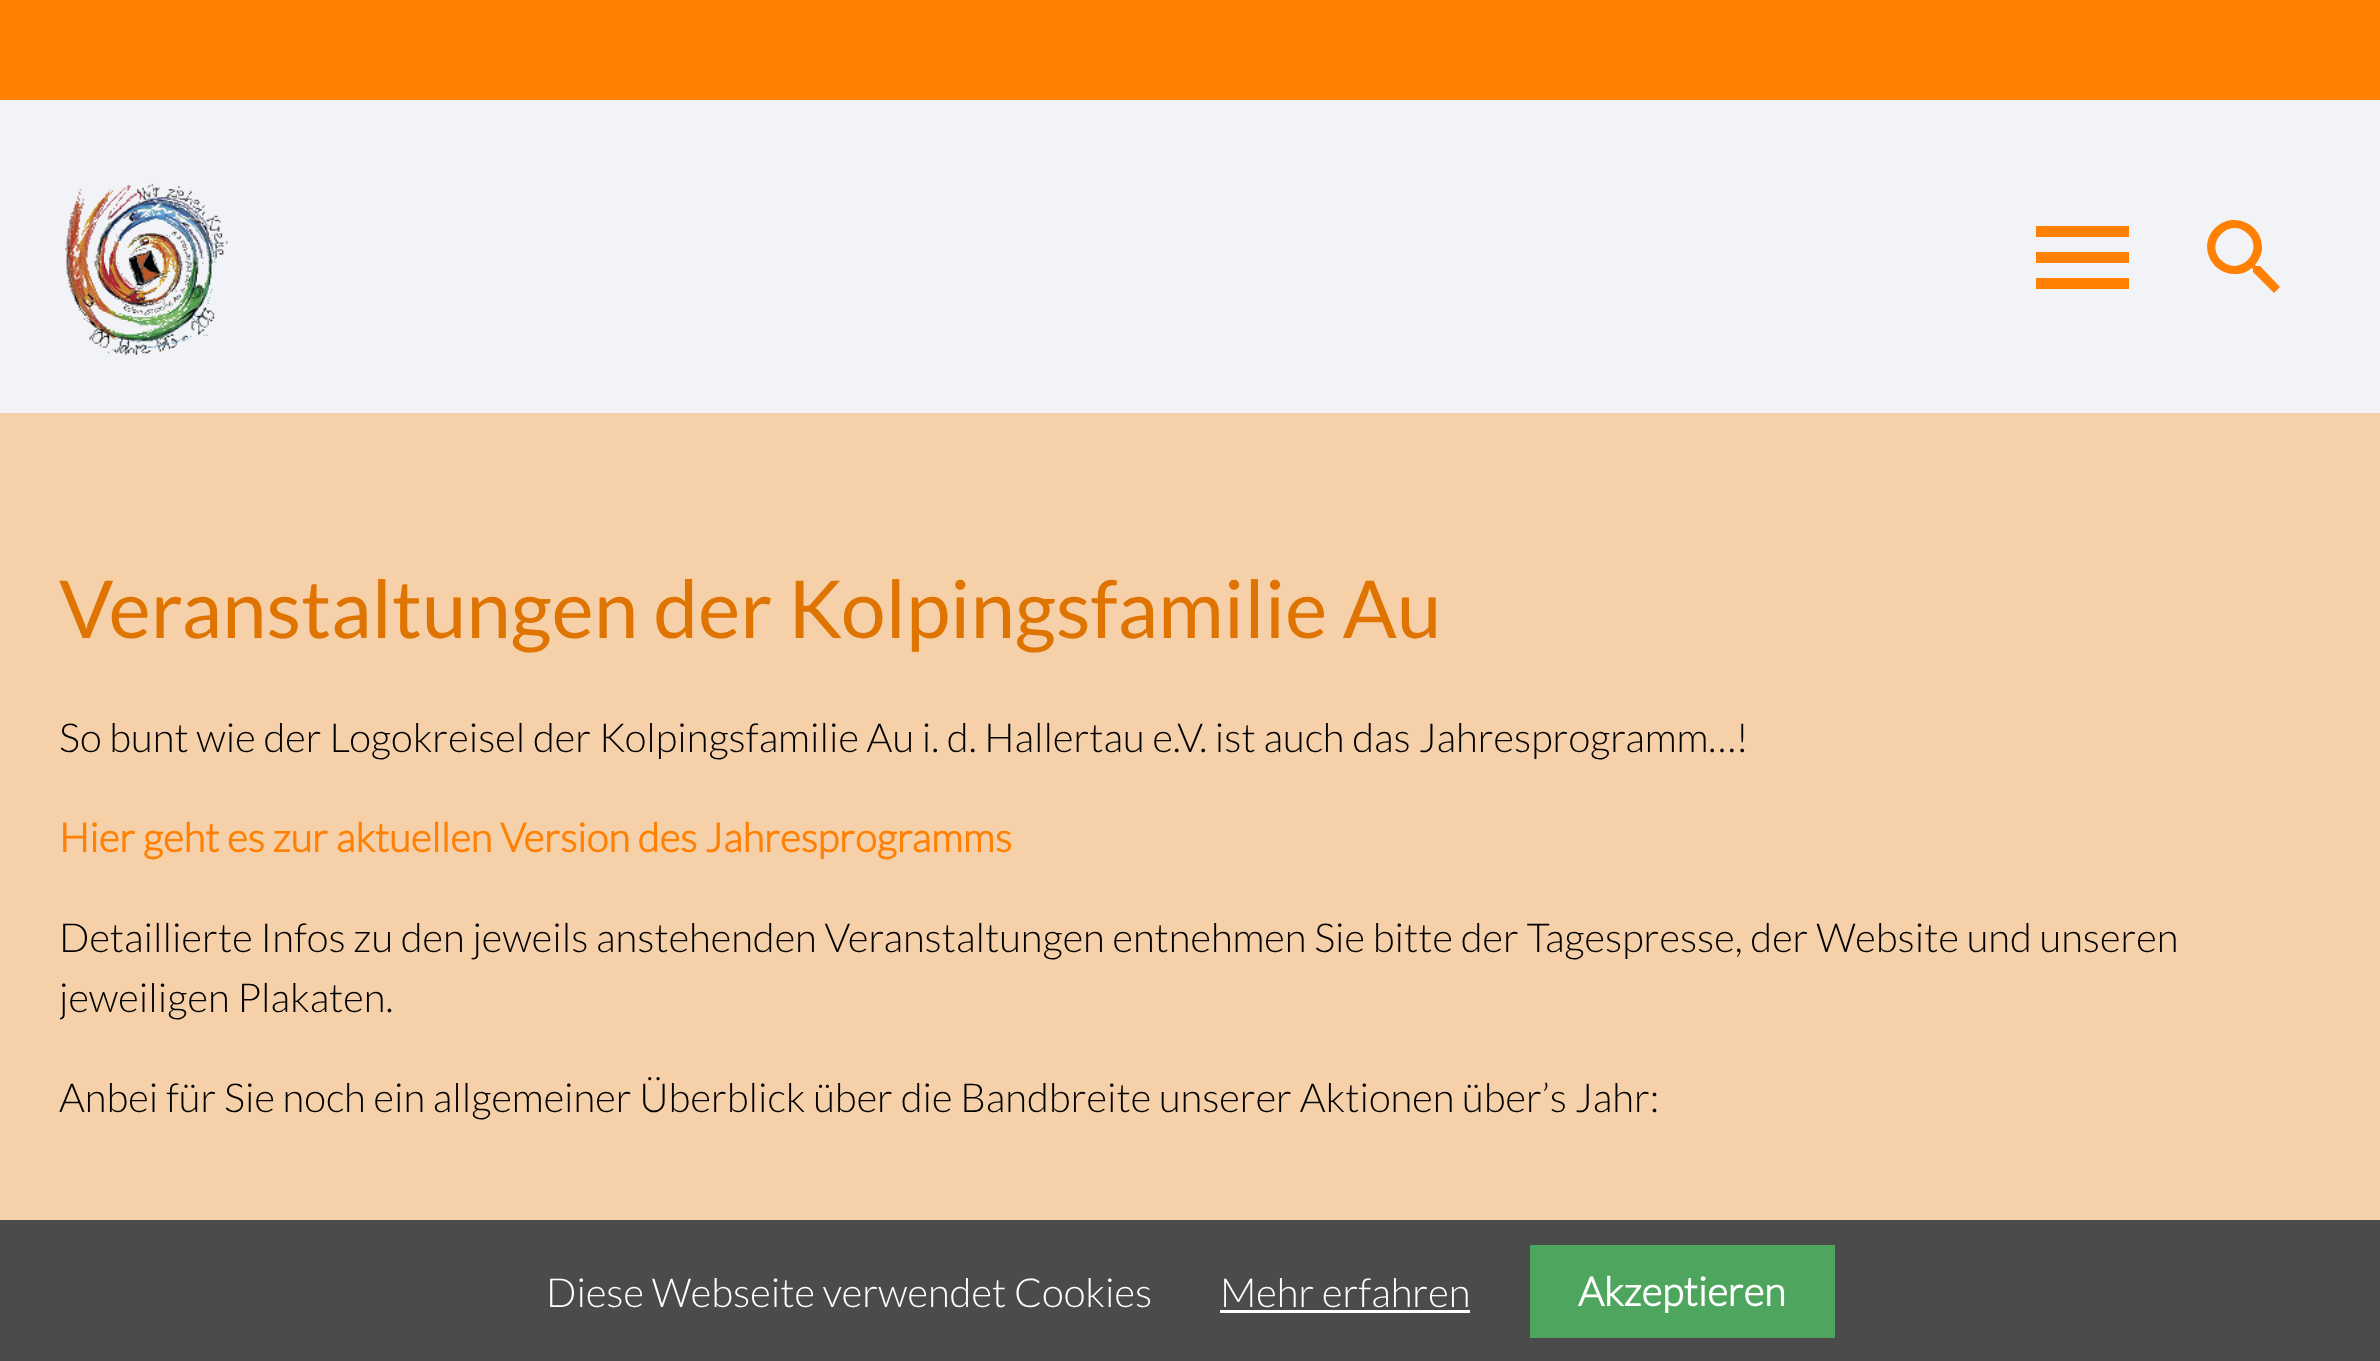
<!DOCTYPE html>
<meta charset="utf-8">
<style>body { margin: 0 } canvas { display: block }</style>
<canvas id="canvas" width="2380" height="1361"></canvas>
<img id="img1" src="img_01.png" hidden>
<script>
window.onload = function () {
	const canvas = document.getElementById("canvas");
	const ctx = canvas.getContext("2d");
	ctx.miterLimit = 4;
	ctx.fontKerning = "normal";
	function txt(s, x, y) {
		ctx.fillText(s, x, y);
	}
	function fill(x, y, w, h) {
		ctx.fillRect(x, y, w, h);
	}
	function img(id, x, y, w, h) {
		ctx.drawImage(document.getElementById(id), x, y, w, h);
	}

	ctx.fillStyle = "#F5D0A9";
	fill(0, 0, 2380, 1361);
	ctx.fillStyle = "#FF8003";
	fill(0, 0, 2380, 100);
	ctx.fillStyle = "#F2F3F7";
	fill(0, 100, 2380, 313);
	img("img1", 65, 183, 163, 172);
	ctx.fillStyle = "#FF8003";
	ctx.beginPath();
	ctx.moveTo(2036, 226);
	ctx.lineTo(2129, 226);
	ctx.lineTo(2129, 237);
	ctx.lineTo(2036, 237);
	ctx.closePath();
	ctx.moveTo(2036, 263);
	ctx.lineTo(2036, 252);
	ctx.lineTo(2129, 252);
	ctx.lineTo(2129, 263);
	ctx.closePath();
	ctx.moveTo(2036, 289);
	ctx.lineTo(2036, 278);
	ctx.lineTo(2129, 278);
	ctx.lineTo(2129, 289);
	ctx.closePath();
	ctx.fill();
	ctx.beginPath();
	ctx.moveTo(2221, 260);
	ctx.bezierCurveTo(2239, 278, 2265, 251, 2248, 234);
	ctx.bezierCurveTo(2230, 216, 2204, 243, 2221, 260);
	ctx.closePath();
	ctx.moveTo(2260, 266);
	ctx.lineTo(2280, 287);
	ctx.lineTo(2274, 293);
	ctx.lineTo(2253, 272);
	ctx.lineTo(2253, 269);
	ctx.lineTo(2252, 268);
	ctx.bezierCurveTo(2248, 271, 2243, 274, 2237, 274);
	ctx.bezierCurveTo(2212, 276, 2197, 246, 2215, 228);
	ctx.bezierCurveTo(2233, 210, 2264, 224, 2262, 250);
	ctx.bezierCurveTo(2261, 255, 2259, 260, 2255, 265);
	ctx.lineTo(2256, 266);
	ctx.closePath();
	ctx.fill();
	ctx.fillStyle = "#4B4B4B";
	fill(0, 1220, 2380, 141);
	ctx.fillStyle = "#FFFFFF";
	fill(1220, 1310, 250, 3);
	ctx.fillStyle = "#4EA55E";
	fill(1530, 1245, 305, 93);
	ctx.font = "80px Lato";
	ctx.fillStyle = "#DF7401";
	txt("Veranstaltungen der Kolpingsfamilie Au", 59, 638);
	ctx.font = "300 40px Lato";
	ctx.fillStyle = "#000000";
	txt("So bunt wie der Logokreisel der Kolpingsfamilie Au i. d. Hallertau e.V. ist auch das Jahresprogramm…!", 59, 752);
	ctx.font = "bold 40px Lato";
	ctx.fillStyle = "#FF8003";
	txt("Hier geht es zur aktuellen Version des Jahresprogramms", 59, 852);
	ctx.font = "300 40px Lato";
	ctx.fillStyle = "#000000";
	txt("Detaillierte Infos zu den jeweils anstehenden Veranstaltungen entnehmen Sie bitte der Tagespresse, der Website und unseren", 59, 952);
	ctx.save();
	ctx.beginPath();
	ctx.rect(60, 563, 2260, 605);
	ctx.clip();
	txt("jeweiligen Plakaten.", 59, 1012);
	ctx.restore();
	txt("Anbei für Sie noch ein allgemeiner Überblick über die Bandbreite unserer Aktionen über’s Jahr:", 59, 1112);
	ctx.fillStyle = "#FFFFFF";
	txt("Diese Webseite verwendet Cookies", 546, 1307);
	txt("Mehr erfahren", 1220, 1307);
	ctx.font = "bold 40px Lato";
	txt("Akzeptieren", 1578, 1306);
};
</script>
